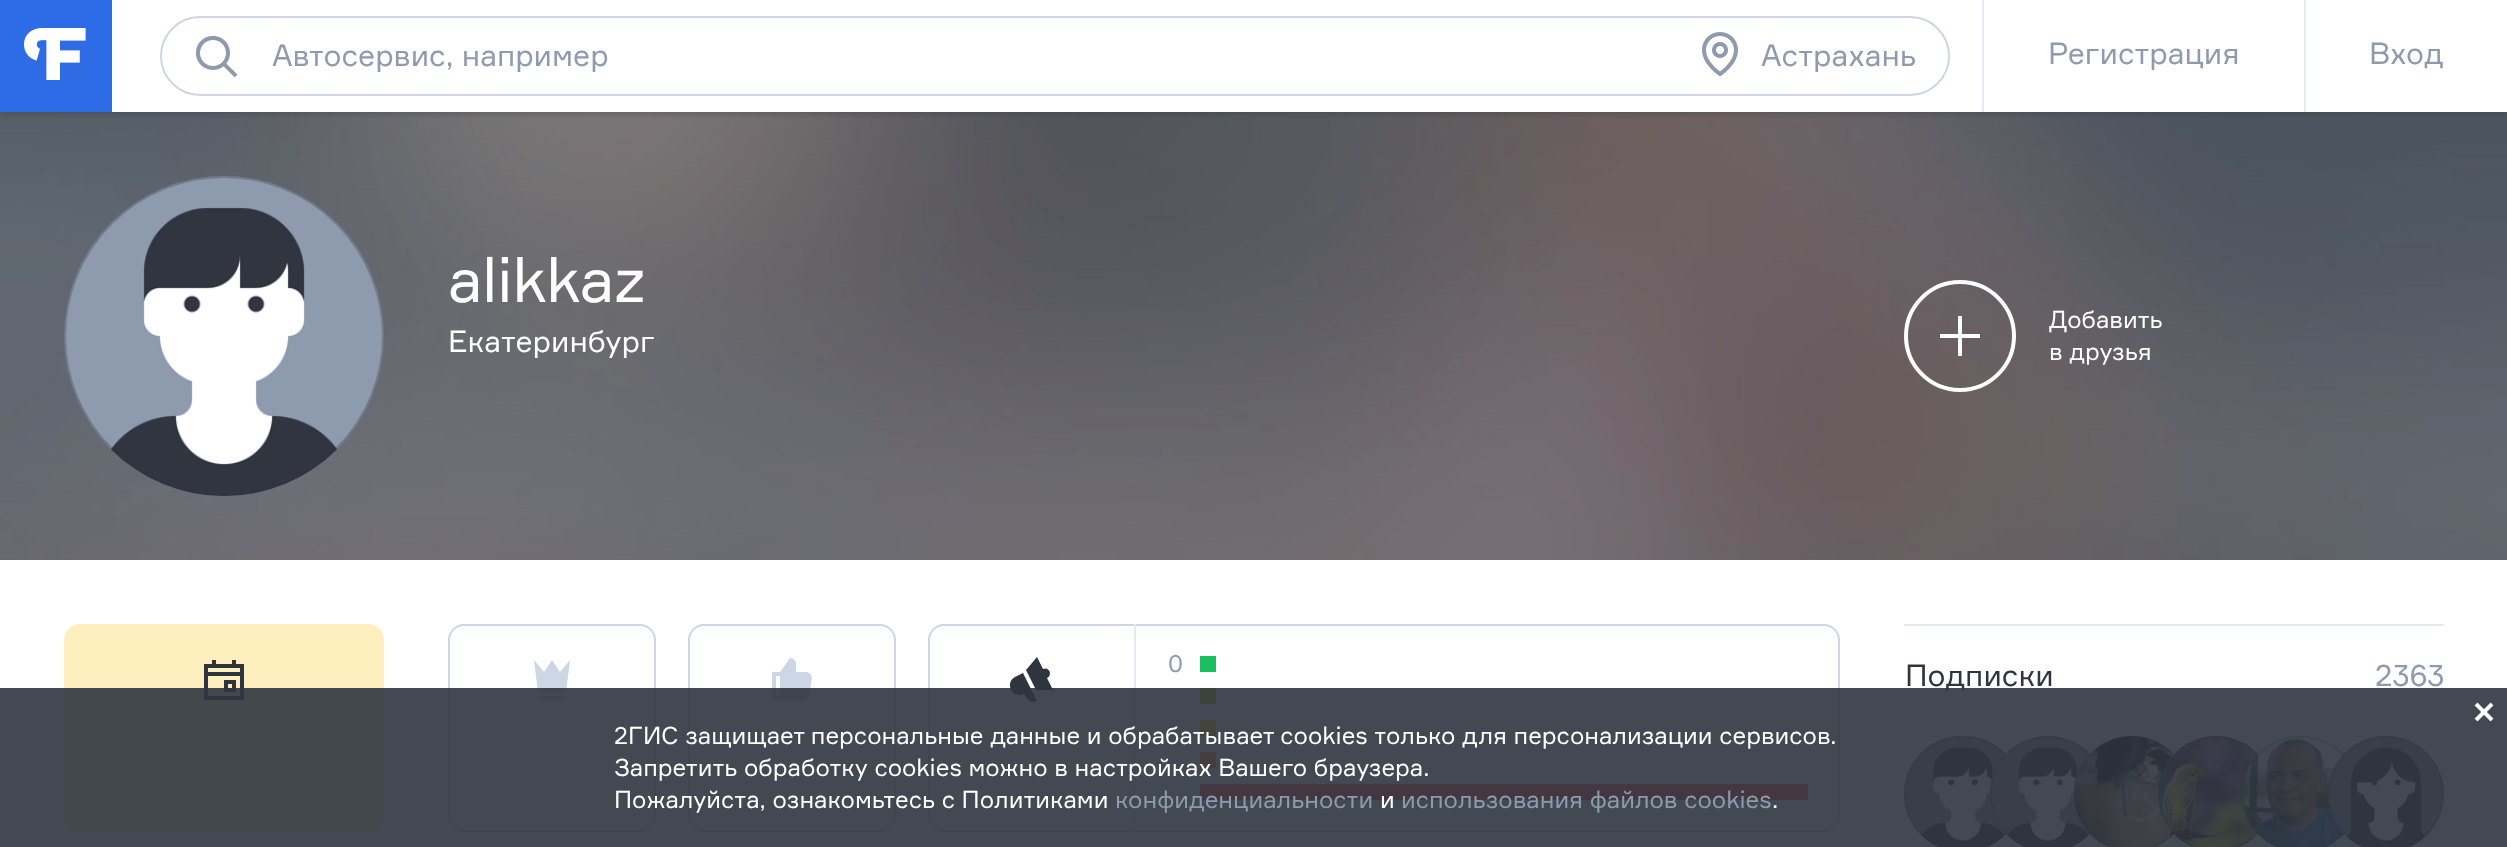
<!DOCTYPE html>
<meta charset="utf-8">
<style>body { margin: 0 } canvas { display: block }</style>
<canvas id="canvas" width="2507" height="847"></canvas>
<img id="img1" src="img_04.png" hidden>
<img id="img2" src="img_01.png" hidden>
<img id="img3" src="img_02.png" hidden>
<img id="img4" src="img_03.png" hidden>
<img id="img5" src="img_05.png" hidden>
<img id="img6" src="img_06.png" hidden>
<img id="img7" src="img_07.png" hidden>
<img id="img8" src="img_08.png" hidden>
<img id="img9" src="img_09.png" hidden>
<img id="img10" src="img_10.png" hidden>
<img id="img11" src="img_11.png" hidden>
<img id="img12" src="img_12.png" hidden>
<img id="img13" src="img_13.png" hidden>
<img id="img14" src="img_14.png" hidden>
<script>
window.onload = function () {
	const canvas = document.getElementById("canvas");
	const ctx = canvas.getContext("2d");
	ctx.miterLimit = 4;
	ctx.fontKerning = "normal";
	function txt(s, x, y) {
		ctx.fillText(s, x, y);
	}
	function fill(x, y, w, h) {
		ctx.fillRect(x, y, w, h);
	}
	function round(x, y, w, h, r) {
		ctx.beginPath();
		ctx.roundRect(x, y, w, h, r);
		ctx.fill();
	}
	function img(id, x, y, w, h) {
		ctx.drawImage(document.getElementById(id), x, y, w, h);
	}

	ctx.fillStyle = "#FFFFFF";
	fill(0, 0, 2507, 847);
	img("img1", 0, 112, 2507, 448);
	ctx.save();
	ctx.beginPath();
	ctx.rect(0, 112, 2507, 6);
	ctx.clip();
	ctx.fillStyle = "rgba(47, 53, 63, 0.3)";
	ctx.filter = "blur(3px)";
	ctx.beginPath();
	ctx.rect(0, 2, 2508, 112);
	ctx.fill();
	ctx.filter = "none";
	ctx.restore();
	ctx.fillStyle = "#2E6BE6";
	fill(0, 0, 112, 112);
	img("img2", 24, 28, 64, 52);
	ctx.beginPath();
	ctx.roundRect(161, 17, 1788, 78, 39);
	ctx.strokeStyle = "#CCD6E4";
	ctx.lineWidth = 2;
	ctx.stroke();
	img("img3", 195, 35, 43, 43);
	img("img4", 1702, 32, 36, 45);
	ctx.fillStyle = "#E5EAF1";
	fill(1982, 0, 2, 112);
	fill(2304, 0, 2, 112);
	img("img5", 64, 176, 320, 320);
	ctx.beginPath();
	ctx.arc(224, 336, 159, 0, Math.PI * 2);
	ctx.strokeStyle = "rgba(47, 53, 63, 0.3)";
	ctx.stroke();
	ctx.beginPath();
	ctx.arc(1960, 336, 54, 0, Math.PI * 2);
	ctx.strokeStyle = "#FFFFFF";
	ctx.lineWidth = 4;
	ctx.stroke();
	ctx.fillStyle = "#FFFFFF";
	ctx.beginPath();
	ctx.moveTo(1980, 334);
	ctx.lineTo(1962, 334);
	ctx.lineTo(1962, 316);
	ctx.lineTo(1958, 316);
	ctx.lineTo(1958, 334);
	ctx.lineTo(1940, 334);
	ctx.lineTo(1940, 338);
	ctx.lineTo(1958, 338);
	ctx.lineTo(1958, 356);
	ctx.lineTo(1962, 356);
	ctx.lineTo(1962, 338);
	ctx.lineTo(1980, 338);
	ctx.closePath();
	ctx.fill();
	ctx.fillStyle = "#FFEFBF";
	round(64, 624, 320, 208, 16);
	img("img6", 204, 660, 40, 40);
	ctx.beginPath();
	ctx.roundRect(449, 625, 206, 206, 15);
	ctx.strokeStyle = "#CCD6E4";
	ctx.lineWidth = 2;
	ctx.stroke();
	ctx.fillStyle = "#CCD6E4";
	ctx.beginPath();
	ctx.moveTo(534, 660);
	ctx.lineTo(544, 672);
	ctx.lineTo(552, 660);
	ctx.lineTo(560, 672);
	ctx.lineTo(570, 660);
	ctx.lineTo(566, 692);
	ctx.lineTo(538, 692);
	ctx.closePath();
	ctx.moveTo(538, 696);
	ctx.lineTo(566, 696);
	ctx.lineTo(566, 700);
	ctx.lineTo(538, 700);
	ctx.closePath();
	ctx.fill();
	ctx.beginPath();
	ctx.roundRect(689, 625, 206, 206, 15);
	ctx.stroke();
	img("img7", 772, 658, 40, 42);
	ctx.beginPath();
	ctx.roundRect(929, 625, 910, 206, 15);
	ctx.stroke();
	ctx.fillStyle = "#E5EAF1";
	fill(1134, 624, 2, 208);
	ctx.fillStyle = "#2F353F";
	ctx.beginPath();
	ctx.moveTo(1053, 690);
	ctx.lineTo(1047, 678);
	ctx.bezierCurveTo(1053, 675, 1049, 666, 1043, 669);
	ctx.lineTo(1037, 657);
	ctx.lineTo(1026, 670);
	ctx.lineTo(1036, 690);
	ctx.closePath();
	ctx.moveTo(1015, 677);
	ctx.bezierCurveTo(1005, 682, 1011, 699, 1024, 694);
	ctx.bezierCurveTo(1028, 700, 1030, 704, 1037, 701);
	ctx.lineTo(1023, 673);
	ctx.closePath();
	ctx.fill();
	ctx.fillStyle = "#1CBF60";
	fill(1200, 656, 16, 16);
	ctx.fillStyle = "#99C21D";
	fill(1200, 688, 16, 16);
	ctx.fillStyle = "#FFBF00";
	fill(1200, 720, 16, 16);
	ctx.fillStyle = "#FF8D29";
	fill(1200, 752, 16, 16);
	ctx.fillStyle = "#FF4C5B";
	fill(1200, 784, 608, 16);
	ctx.fillStyle = "#E5EAF1";
	fill(1904, 624, 540, 2);
	img("img8", 1904, 736, 103, 111);
	ctx.beginPath();
	ctx.roundRect(1905, 737, 116, 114, 57);
	ctx.strokeStyle = "rgba(47, 53, 63, 0.3)";
	ctx.stroke();
	img("img9", 1990, 736, 101, 111);
	ctx.beginPath();
	ctx.arc(2048, 794, 57, 0, Math.PI * 2);
	ctx.stroke();
	img("img10", 2074, 736, 101, 111);
	ctx.beginPath();
	ctx.arc(2132, 794, 57, 0, Math.PI * 2);
	ctx.stroke();
	img("img11", 2158, 736, 101, 111);
	ctx.beginPath();
	ctx.arc(2216, 794, 57, 0, Math.PI * 2);
	ctx.stroke();
	img("img12", 2242, 738, 103, 109);
	ctx.beginPath();
	ctx.roundRect(2243, 737, 116, 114, 57);
	ctx.stroke();
	img("img13", 2328, 736, 116, 111);
	ctx.beginPath();
	ctx.arc(2386, 794, 57, 0, Math.PI * 2);
	ctx.stroke();
	ctx.font = "30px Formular";
	ctx.fillStyle = "#8E9AAD";
	txt("Автосервис, например", 272, 66);
	txt("Астрахань", 1761, 66);
	txt("Регистрация", 2048, 64);
	txt("Вход", 2369, 64);
	ctx.letterSpacing = "-0.5px";
	ctx.font = "62px Formular";
	ctx.fillStyle = "#FFFFFF";
	txt("alikkaz", 448, 302);
	ctx.letterSpacing = "0px";
	ctx.font = "30px Formular";
	txt("Екатеринбург", 448, 352);
	ctx.font = "24px Formular";
	txt("Добавить", 2049, 328);
	txt("в друзья", 2049, 360);
	ctx.fillStyle = "#8E9AAD";
	txt("0", 1168, 672);
	ctx.font = "30px Formular";
	ctx.fillStyle = "#2F353F";
	txt("Подписки", 1905, 686);
	ctx.fillStyle = "#8E9AAD";
	txt("2363", 2375, 686);
	ctx.fillStyle = "rgba(47, 53, 63, 0.9)";
	fill(0, 688, 2507, 159);
	img("img14", 2474, 702, 20, 20);
	ctx.font = "24px Formular";
	ctx.fillStyle = "#FFFFFF";
	txt("2ГИС защищает персональные данные и обрабатывает cookies только для персонализации сервисов.", 614, 744);
	txt("Запретить обработку cookies можно в настройках Вашего браузера.", 614, 776);
	txt("Пожалуйста, ознакомьтесь с Политиками", 614, 808);
	ctx.fillStyle = "#8E9AAD";
	txt("конфиденциальности", 1115, 808);
	ctx.fillStyle = "#FFFFFF";
	txt("и", 1380, 808);
	ctx.fillStyle = "#8E9AAD";
	txt("использования файлов cookies", 1401, 808);
	ctx.fillStyle = "#FFFFFF";
	txt(".", 1772, 808);
};
</script>
